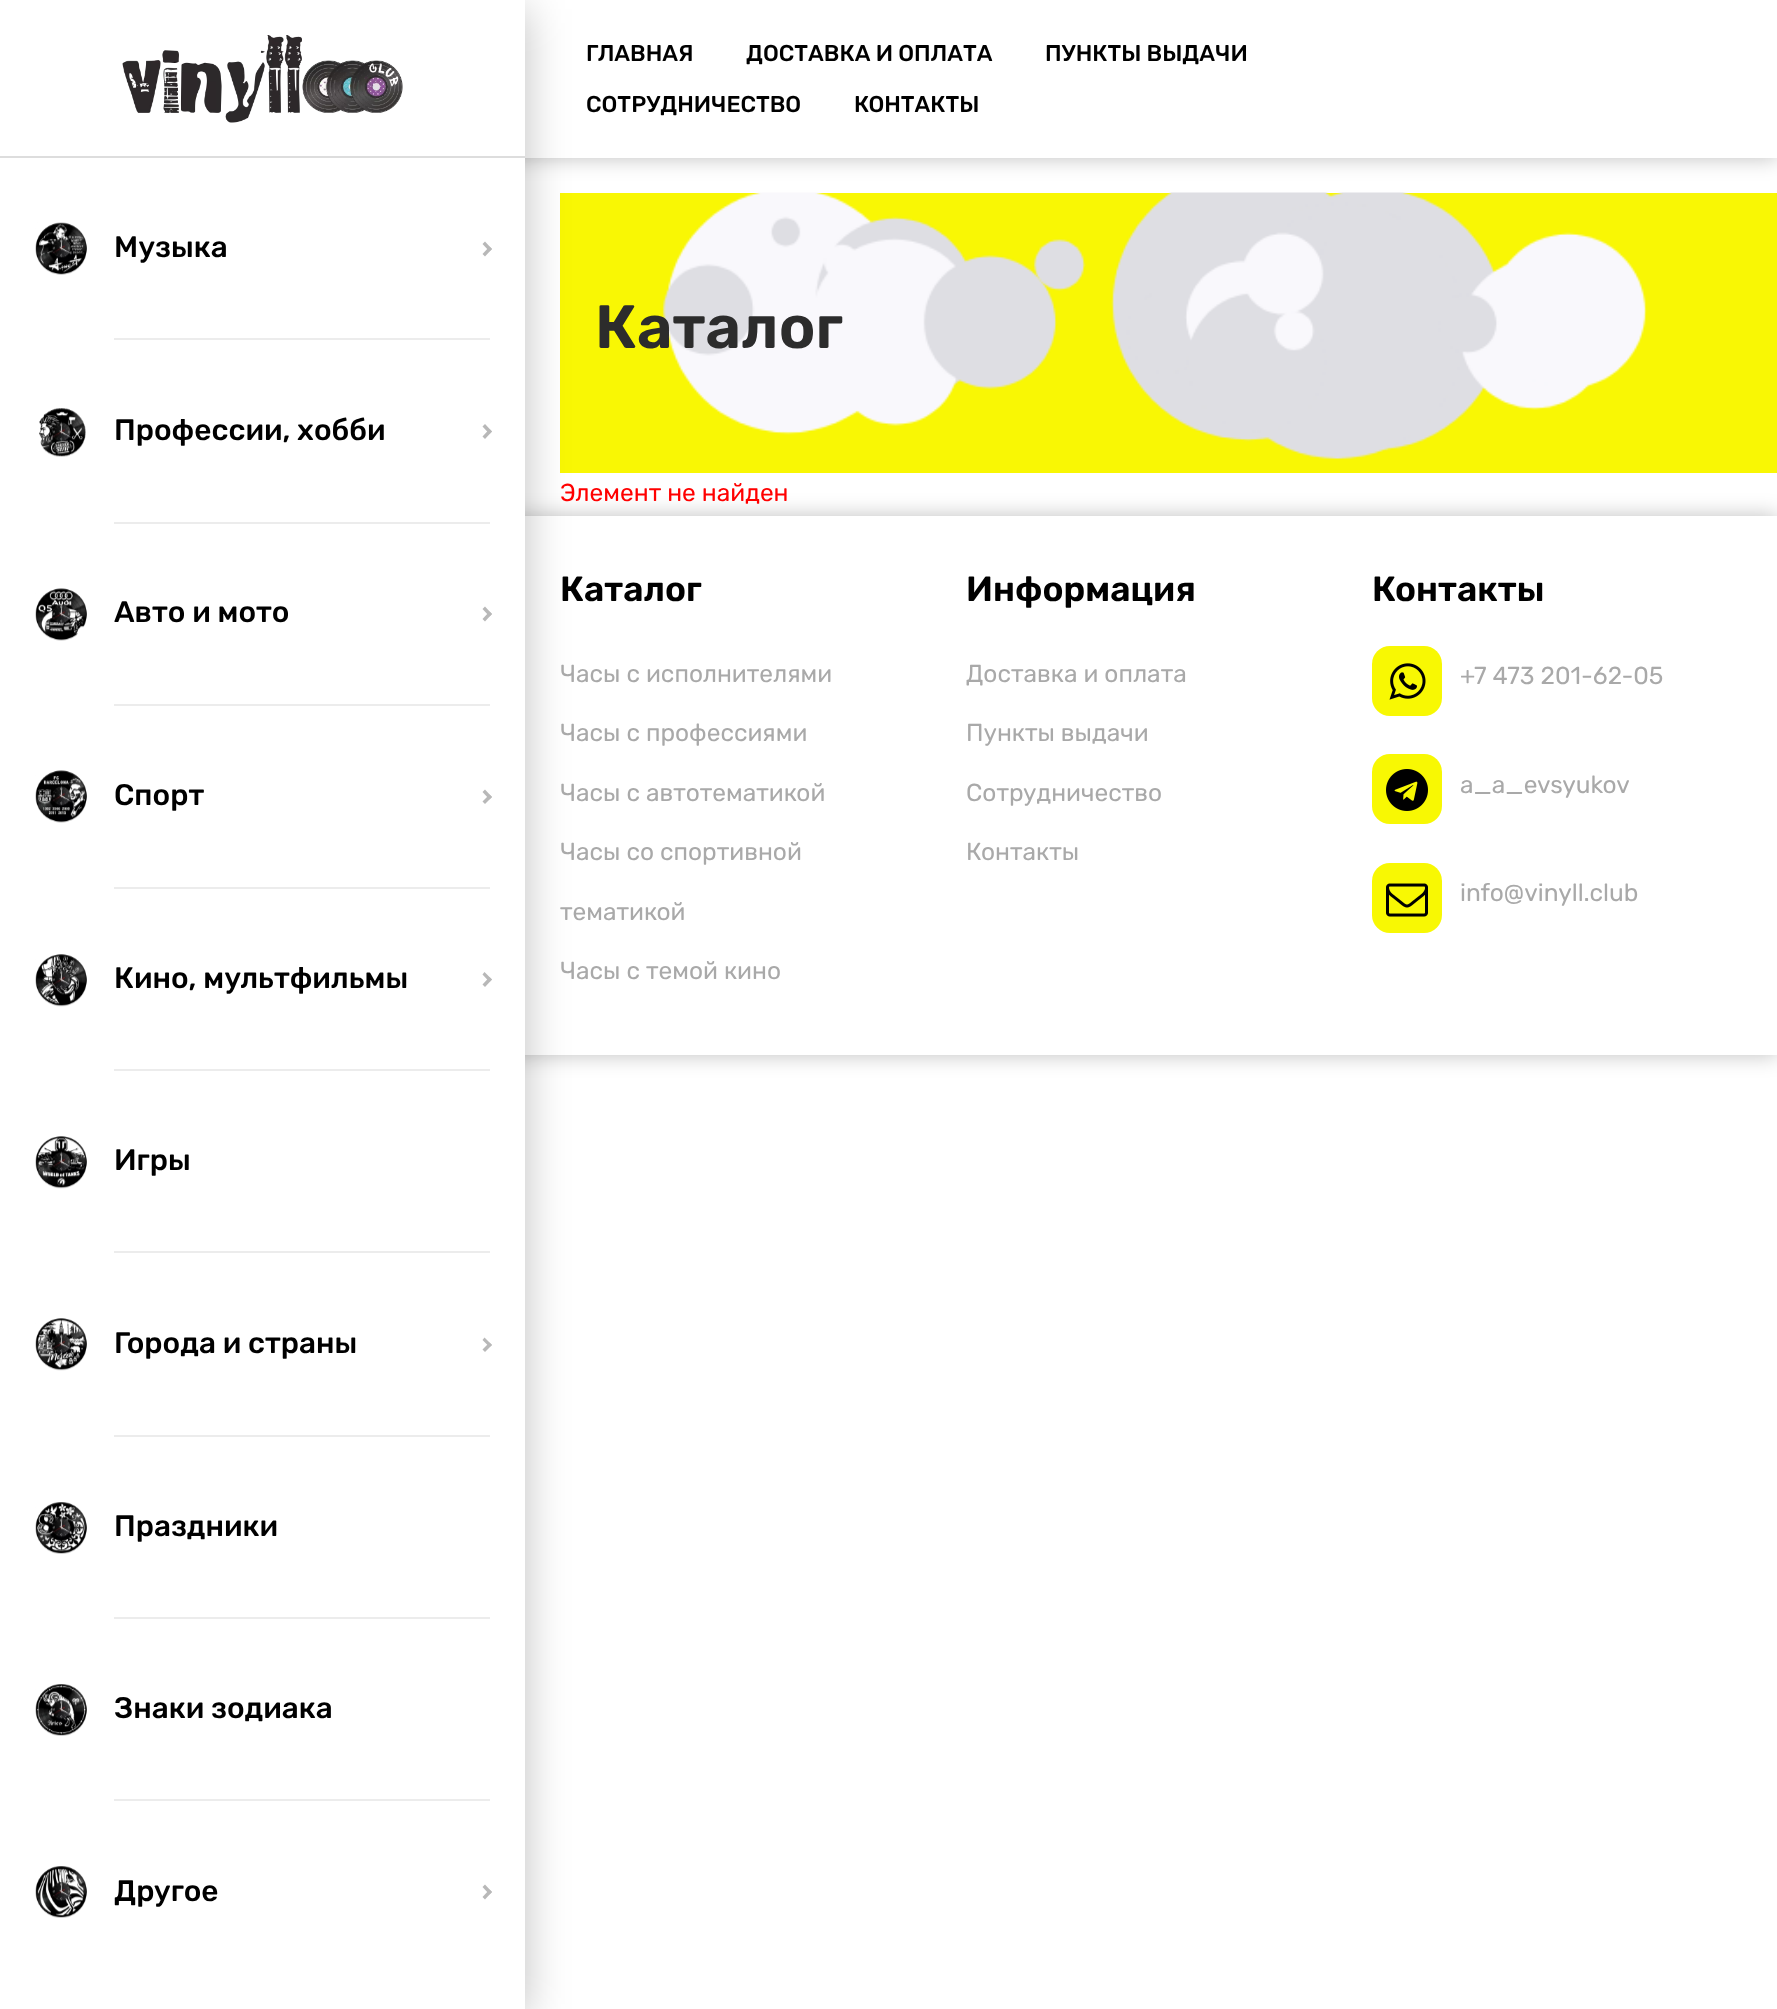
<!DOCTYPE html>
<meta charset="utf-8">
<style>body { margin: 0 } canvas { display: block }</style>
<canvas id="canvas" width="1777" height="2009"></canvas>
<img id="img1" src="img_01.png" hidden>
<img id="img2" src="img_02.png" hidden>
<img id="img3" src="img_03.png" hidden>
<img id="img4" src="img_04.png" hidden>
<img id="img5" src="img_05.png" hidden>
<img id="img6" src="img_06.png" hidden>
<img id="img7" src="img_07.png" hidden>
<img id="img8" src="img_08.png" hidden>
<img id="img9" src="img_09.png" hidden>
<img id="img10" src="img_10.png" hidden>
<img id="img11" src="img_11.png" hidden>
<img id="img12" src="img_12.png" hidden>
<img id="img13" src="img_13.png" hidden>
<img id="img14" src="img_14.png" hidden>
<img id="img15" src="img_15.png" hidden>
<script>
window.onload = function () {
	const canvas = document.getElementById("canvas");
	const ctx = canvas.getContext("2d");
	ctx.miterLimit = 4;
	ctx.fontKerning = "normal";
	function txt(s, x, y) {
		ctx.fillText(s, x, y);
	}
	function fill(x, y, w, h) {
		ctx.fillRect(x, y, w, h);
	}
	function round(x, y, w, h, r) {
		ctx.beginPath();
		ctx.roundRect(x, y, w, h, r);
		ctx.fill();
	}
	function img(id, x, y, w, h) {
		ctx.drawImage(document.getElementById(id), x, y, w, h);
	}

	ctx.fillStyle = "#FFFFFF";
	fill(0, 0, 1777, 2009);
	ctx.fillStyle = "rgba(0, 0, 0, 0.25)";
	ctx.filter = "blur(10.5px)";
	ctx.beginPath();
	ctx.rect(0, 0, 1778, 158);
	ctx.fill();
	ctx.filter = "none";
	ctx.fillStyle = "#FFFFFF";
	fill(525, 0, 1252, 158);
	ctx.fillStyle = "#F9F704";
	fill(560, 193, 1217, 280);
	ctx.fillStyle = "rgba(0, 0, 0, 0.25)";
	ctx.filter = "blur(10.5px)";
	ctx.beginPath();
	ctx.rect(0, 516, 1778, 539);
	ctx.fill();
	ctx.filter = "none";
	ctx.fillStyle = "#FFFFFF";
	fill(525, 516, 1252, 539);
	ctx.fillStyle = "rgba(0, 0, 0, 0.25)";
	ctx.filter = "blur(22px)";
	ctx.beginPath();
	ctx.rect(0, 9, 525, 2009);
	ctx.fill();
	ctx.filter = "none";
	ctx.fillStyle = "#FFFFFF";
	fill(0, 0, 525, 2009);
	ctx.fillStyle = "#DDDDDD";
	fill(0, 156, 525, 2);
	img("img1", 122, 35, 281, 88);
	img("img2", 35, 222, 52, 53);
	ctx.fillStyle = "#ECECEC";
	fill(114, 338, 376, 2);
	ctx.fillStyle = "#B8B8B8";
	ctx.beginPath();
	ctx.moveTo(485, 241.5);
	ctx.lineTo(492, 249);
	ctx.lineTo(489.5, 251.5);
	ctx.lineTo(482.5, 244);
	ctx.closePath();
	ctx.fill();
	ctx.beginPath();
	ctx.moveTo(489.5, 246.5);
	ctx.lineTo(492, 249);
	ctx.lineTo(485, 256.5);
	ctx.lineTo(482.5, 254);
	ctx.closePath();
	ctx.fill();
	img("img3", 39, 408, 47, 49);
	ctx.fillStyle = "#ECECEC";
	fill(114, 522, 376, 2);
	ctx.fillStyle = "#B8B8B8";
	ctx.beginPath();
	ctx.moveTo(485, 424);
	ctx.lineTo(492, 431.5);
	ctx.lineTo(489.5, 434);
	ctx.lineTo(482.5, 426.5);
	ctx.closePath();
	ctx.fill();
	ctx.beginPath();
	ctx.moveTo(489.5, 429);
	ctx.lineTo(492, 431.5);
	ctx.lineTo(485, 439);
	ctx.lineTo(482.5, 436.5);
	ctx.closePath();
	ctx.fill();
	img("img4", 35, 588, 52, 53);
	ctx.fillStyle = "#ECECEC";
	fill(114, 704, 376, 2);
	ctx.fillStyle = "#B8B8B8";
	ctx.beginPath();
	ctx.moveTo(485, 606.5);
	ctx.lineTo(492, 614);
	ctx.lineTo(489.5, 616.5);
	ctx.lineTo(482.5, 609);
	ctx.closePath();
	ctx.fill();
	ctx.beginPath();
	ctx.moveTo(489.5, 611.5);
	ctx.lineTo(492, 614);
	ctx.lineTo(485, 621.5);
	ctx.lineTo(482.5, 619);
	ctx.closePath();
	ctx.fill();
	img("img5", 35, 770, 52, 53);
	ctx.fillStyle = "#ECECEC";
	fill(114, 887, 376, 2);
	ctx.fillStyle = "#B8B8B8";
	ctx.beginPath();
	ctx.moveTo(485, 789.5);
	ctx.lineTo(492, 797);
	ctx.lineTo(489.5, 799.5);
	ctx.lineTo(482.5, 792);
	ctx.closePath();
	ctx.fill();
	ctx.beginPath();
	ctx.moveTo(489.5, 794.5);
	ctx.lineTo(492, 797);
	ctx.lineTo(485, 804);
	ctx.lineTo(482.5, 801.5);
	ctx.closePath();
	ctx.fill();
	img("img6", 35, 954, 52, 53);
	ctx.fillStyle = "#ECECEC";
	fill(114, 1069, 376, 2);
	ctx.fillStyle = "#B8B8B8";
	ctx.beginPath();
	ctx.moveTo(484.5, 972);
	ctx.lineTo(492, 979.5);
	ctx.lineTo(489.5, 982);
	ctx.lineTo(482.5, 974.5);
	ctx.closePath();
	ctx.fill();
	ctx.beginPath();
	ctx.moveTo(489.5, 977);
	ctx.lineTo(492, 979.5);
	ctx.lineTo(485, 987);
	ctx.lineTo(482.5, 984.5);
	ctx.closePath();
	ctx.fill();
	img("img7", 35, 1136, 52, 53);
	ctx.fillStyle = "#ECECEC";
	fill(114, 1251, 376, 2);
	img("img8", 35, 1318, 52, 53);
	fill(114, 1435, 376, 2);
	ctx.fillStyle = "#B8B8B8";
	ctx.beginPath();
	ctx.moveTo(484.5, 1337.5);
	ctx.lineTo(492, 1345);
	ctx.lineTo(489.5, 1347);
	ctx.lineTo(482.5, 1340);
	ctx.closePath();
	ctx.fill();
	ctx.beginPath();
	ctx.moveTo(489.5, 1342.5);
	ctx.lineTo(492, 1345);
	ctx.lineTo(485, 1352);
	ctx.lineTo(482.5, 1349.5);
	ctx.closePath();
	ctx.fill();
	img("img9", 35, 1502, 52, 52);
	ctx.fillStyle = "#ECECEC";
	fill(114, 1617, 376, 2);
	img("img10", 35, 1684, 52, 52);
	fill(114, 1799, 376, 2);
	img("img11", 35, 1866, 52, 52);
	ctx.fillStyle = "#B8B8B8";
	ctx.beginPath();
	ctx.moveTo(485, 1884.5);
	ctx.lineTo(492, 1892);
	ctx.lineTo(489.5, 1894.5);
	ctx.lineTo(482.5, 1887);
	ctx.closePath();
	ctx.fill();
	ctx.beginPath();
	ctx.moveTo(489.5, 1889.5);
	ctx.lineTo(492, 1892);
	ctx.lineTo(485, 1899.5);
	ctx.lineTo(482.5, 1897);
	ctx.closePath();
	ctx.fill();
	img("img12", 662, 192, 985, 267);
	ctx.fillStyle = "#F8F803";
	round(1372, 646, 70, 70, 18);
	img("img13", 1389, 663, 37, 37);
	round(1372, 754, 70, 70, 18);
	img("img14", 1386, 769, 42, 42);
	round(1372, 863, 70, 70, 18);
	img("img15", 1386, 883, 42, 34);
	ctx.font = "500 22.75px Rubik";
	ctx.fillStyle = "#000000";
	txt("ГЛАВНАЯ", 586, 61);
	txt("ДОСТАВКА И ОПЛАТА", 746, 61);
	txt("ПУНКТЫ ВЫДАЧИ", 1045, 61);
	txt("СОТРУДНИЧЕСТВО", 586, 112);
	txt("КОНТАКТЫ", 854, 112);
	ctx.font = "500 29.75px Rubik";
	txt("Музыка", 114, 257);
	txt("Профессии, хобби", 114, 440);
	txt("Авто и мото", 114, 622);
	txt("Спорт", 114, 805);
	txt("Кино, мультфильмы", 114, 988);
	txt("Игры", 114, 1170);
	txt("Города и страны", 114, 1353);
	txt("Праздники", 114, 1536);
	txt("Знаки зодиака", 114, 1718);
	txt("Другое", 114, 1901);
	ctx.font = "600 61.25px Rubik";
	ctx.fillStyle = "#2C2C2C";
	txt("Каталог", 595, 348);
	ctx.font = "24.5px Rubik";
	ctx.fillStyle = "#FF0000";
	txt("Элемент не найден", 560, 501);
	ctx.font = "600 35px Rubik";
	ctx.fillStyle = "#000000";
	txt("Каталог", 560, 601);
	ctx.font = "24.5px Rubik";
	ctx.fillStyle = "#A9A9A9";
	txt("Часы с исполнителями", 560, 682);
	txt("Часы с профессиями", 560, 741);
	txt("Часы с автотематикой", 560, 801);
	txt("Часы со спортивной", 560, 860);
	txt("тематикой", 560, 920);
	txt("Часы с темой кино", 560, 979);
	ctx.font = "600 35px Rubik";
	ctx.fillStyle = "#000000";
	txt("Информация", 966, 601);
	ctx.font = "24.5px Rubik";
	ctx.fillStyle = "#A9A9A9";
	txt("Доставка и оплата", 966, 682);
	txt("Пункты выдачи", 966, 741);
	txt("Сотрудничество", 966, 801);
	txt("Контакты", 966, 860);
	ctx.font = "600 35px Rubik";
	ctx.fillStyle = "#000000";
	txt("Контакты", 1372, 601);
	ctx.font = "24.5px Rubik";
	ctx.fillStyle = "#A9A9A9";
	txt("+7 473 201-62-05", 1460, 684);
	txt("a_a_evsyukov", 1460, 793);
	txt("info@vinyll.club", 1460, 901);
};
</script>
